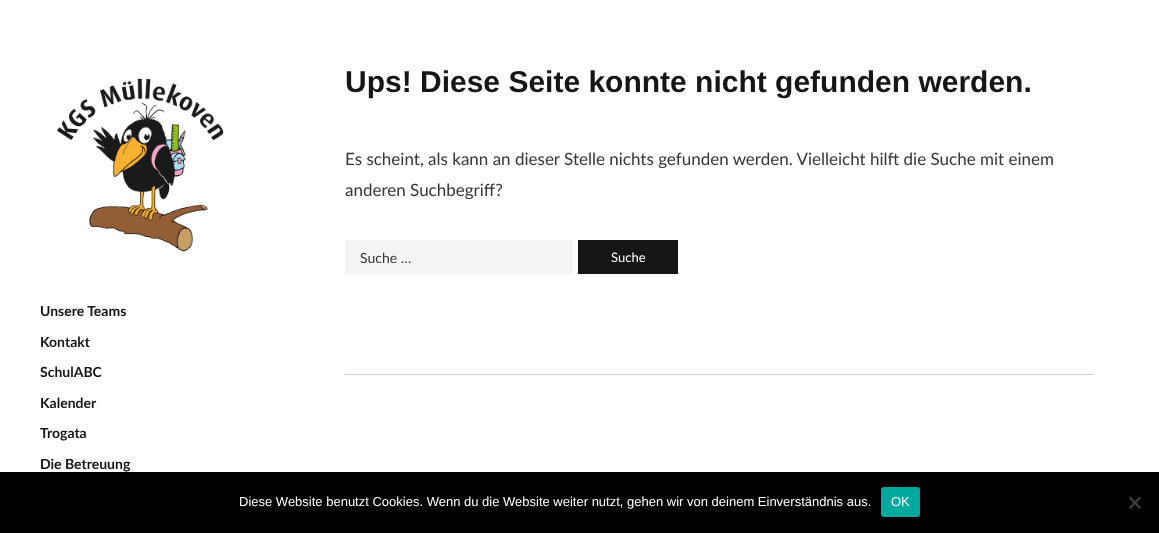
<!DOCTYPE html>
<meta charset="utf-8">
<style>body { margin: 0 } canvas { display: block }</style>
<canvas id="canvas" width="1159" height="533"></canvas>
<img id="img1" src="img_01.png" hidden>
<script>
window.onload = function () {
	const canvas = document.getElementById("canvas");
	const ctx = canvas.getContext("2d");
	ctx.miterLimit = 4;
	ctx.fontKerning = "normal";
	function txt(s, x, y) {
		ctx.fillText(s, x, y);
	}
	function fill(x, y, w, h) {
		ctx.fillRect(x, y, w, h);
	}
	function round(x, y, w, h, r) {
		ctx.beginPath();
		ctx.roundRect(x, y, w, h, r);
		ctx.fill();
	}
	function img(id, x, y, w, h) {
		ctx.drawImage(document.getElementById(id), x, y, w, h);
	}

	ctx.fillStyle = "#FFFFFF";
	fill(0, 0, 1159, 533);
	ctx.fillStyle = "#F4F4F4";
	fill(345, 240, 228, 34);
	ctx.fillStyle = "#161616";
	fill(578, 240, 100, 34);
	ctx.fillStyle = "#CCCCCC";
	fill(345, 374, 749, 1);
	img("img1", 56, 78, 168, 175);
	ctx.fillStyle = "#000000";
	fill(0, 472, 1159, 61);
	ctx.fillStyle = "#00A99D";
	round(881, 487, 39, 30, 3);
	ctx.fillStyle = "#404040";
	ctx.beginPath();
	ctx.moveTo(1139.5, 496.5);
	ctx.lineTo(1141, 498);
	ctx.lineTo(1130.5, 509);
	ctx.lineTo(1129, 507.5);
	ctx.closePath();
	ctx.fill();
	ctx.beginPath();
	ctx.moveTo(1129, 498);
	ctx.lineTo(1130.5, 496.5);
	ctx.lineTo(1141, 507.5);
	ctx.lineTo(1139.5, 509);
	ctx.closePath();
	ctx.fill();
	ctx.font = "bold 30px Liberation Sans";
	ctx.fillStyle = "#161616";
	txt("Ups! Diese Seite konnte nicht gefunden werden.", 345, 92);
	ctx.font = "17px Lato";
	ctx.fillStyle = "#363636";
	txt("Es scheint, als kann an dieser Stelle nichts gefunden werden. Vielleicht hilft die Suche mit einem", 345, 165);
	txt("anderen Suchbegriff?", 345, 196);
	ctx.font = "14px Lato";
	txt("Suche …", 360, 263);
	ctx.font = "13px Lato";
	ctx.fillStyle = "#FFFFFF";
	txt("Suche", 611, 262);
	ctx.font = "bold 14px Lato";
	ctx.fillStyle = "#161616";
	txt("Unsere Teams", 40, 316);
	txt("Kontakt", 40, 347);
	txt("SchulABC", 40, 377);
	txt("Kalender", 40, 408);
	txt("Trogata", 40, 438);
	txt("Die Betreuung", 40, 469);
	ctx.font = "13px Liberation Sans";
	ctx.fillStyle = "#FFFFFF";
	txt("Diese Website benutzt Cookies. Wenn du die Website weiter nutzt, gehen wir von deinem Einverständnis aus.", 239, 506);
	txt("OK", 891, 506);
};
</script>
